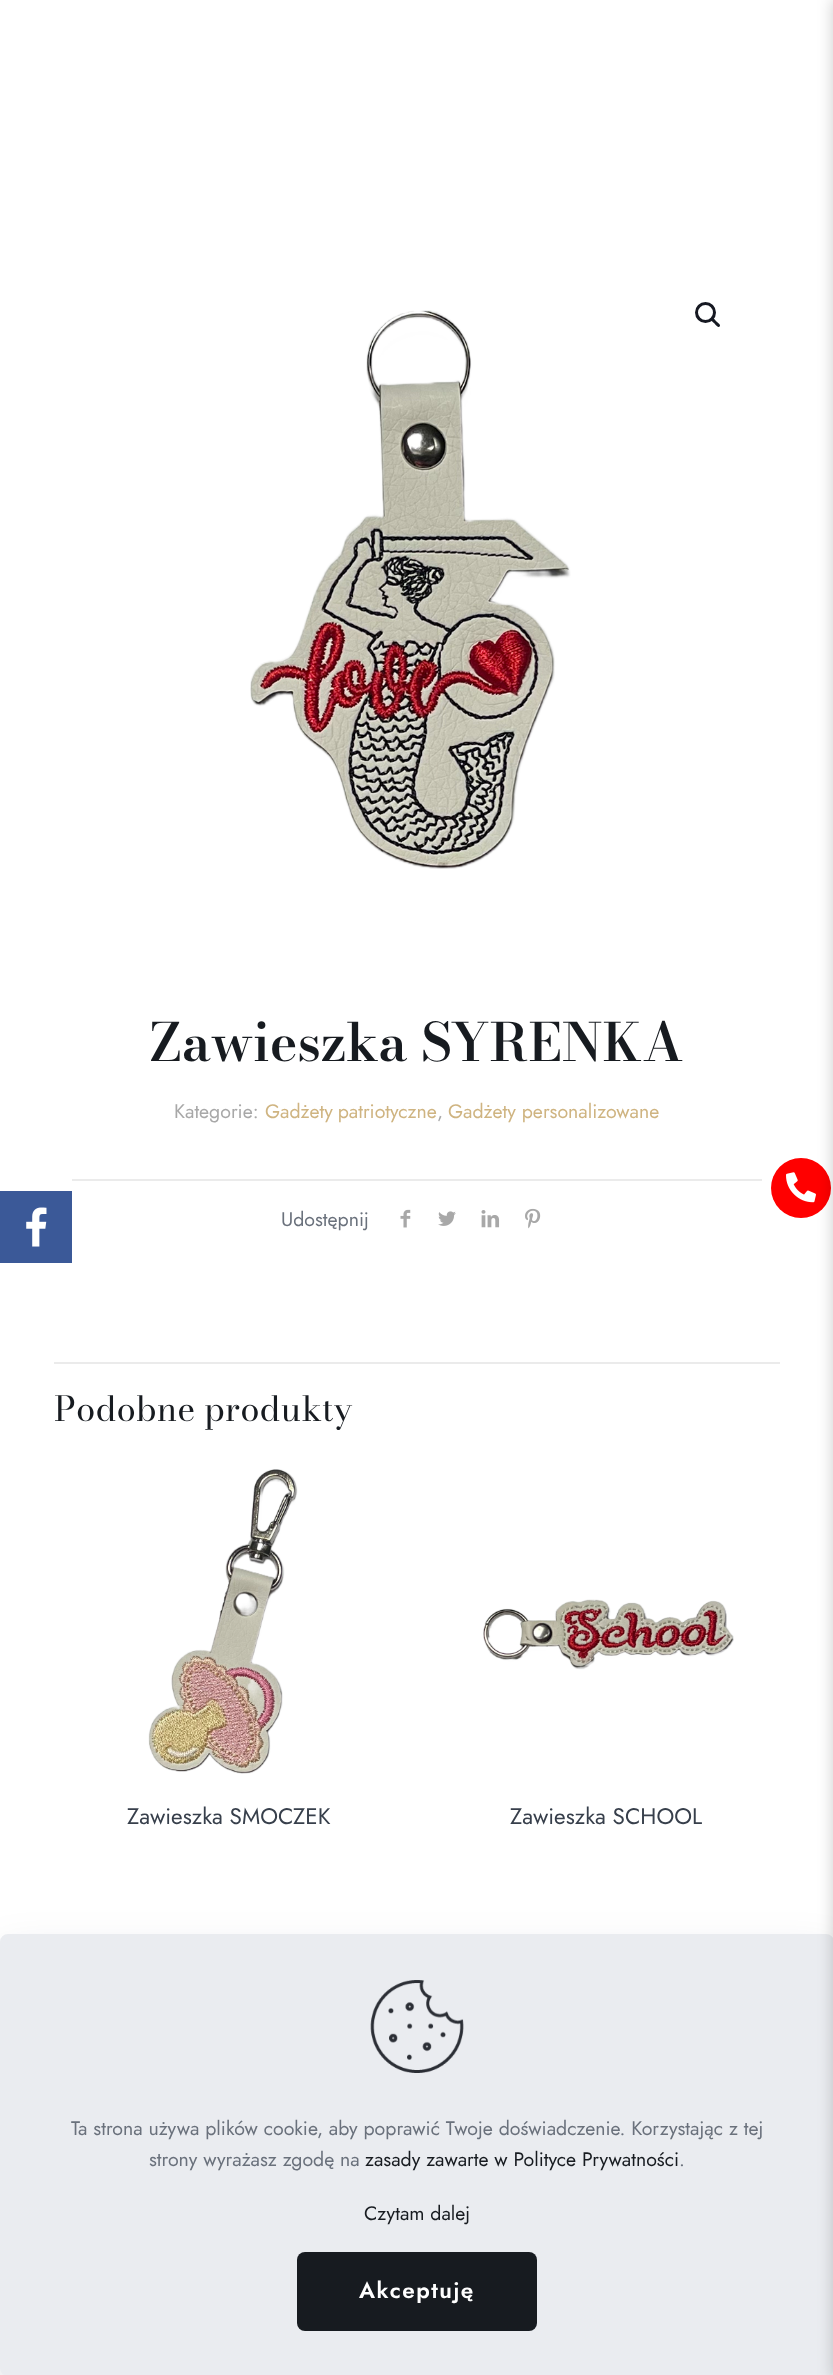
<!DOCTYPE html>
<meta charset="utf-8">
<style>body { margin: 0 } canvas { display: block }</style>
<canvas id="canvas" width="833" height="2375"></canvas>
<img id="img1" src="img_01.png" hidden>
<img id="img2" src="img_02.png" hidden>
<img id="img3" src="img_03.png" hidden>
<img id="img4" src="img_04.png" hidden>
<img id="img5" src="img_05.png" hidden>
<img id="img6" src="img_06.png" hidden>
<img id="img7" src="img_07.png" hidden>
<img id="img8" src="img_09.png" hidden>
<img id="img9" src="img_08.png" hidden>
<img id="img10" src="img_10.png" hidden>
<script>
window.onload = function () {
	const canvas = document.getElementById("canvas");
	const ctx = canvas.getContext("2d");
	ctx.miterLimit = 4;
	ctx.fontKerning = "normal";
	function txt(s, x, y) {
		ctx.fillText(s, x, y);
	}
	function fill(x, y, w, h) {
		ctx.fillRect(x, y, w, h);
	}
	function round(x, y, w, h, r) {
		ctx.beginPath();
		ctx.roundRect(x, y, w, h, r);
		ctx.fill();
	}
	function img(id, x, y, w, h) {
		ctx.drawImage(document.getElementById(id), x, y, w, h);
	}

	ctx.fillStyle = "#FFFFFF";
	fill(0, 0, 833, 2375);
	img("img1", 250, 310, 321, 559);
	ctx.beginPath();
	ctx.arc(705.5, 312.5, 9, 0, Math.PI * 2);
	ctx.strokeStyle = "#161922";
	ctx.lineWidth = 3;
	ctx.stroke();
	ctx.fillStyle = "#161922";
	ctx.beginPath();
	ctx.moveTo(711.5, 318.5);
	ctx.bezierCurveTo(713, 316.5, 715.5, 320.5, 716.5, 321.5);
	ctx.bezierCurveTo(717.5, 322.5, 721.5, 325, 719.5, 326.5);
	ctx.bezierCurveTo(718, 328.5, 715.5, 324.5, 714.5, 323.5);
	ctx.bezierCurveTo(713.5, 322.5, 709.5, 320, 711.5, 318.5);
	ctx.closePath();
	ctx.fill();
	ctx.fillStyle = "#EBEBEB";
	fill(72, 1179, 690, 2);
	img("img2", 400, 1209, 11, 19);
	img("img3", 438, 1211, 18, 15);
	img("img4", 481, 1210, 19, 18);
	img("img5", 525, 1208, 16, 21);
	fill(54, 1362, 726, 2);
	img("img6", 148, 1469, 150, 305);
	img("img7", 483, 1599, 251, 71);
	ctx.fillStyle = "#FF0000";
	ctx.beginPath();
	ctx.arc(801, 1188, 30, 0, Math.PI * 2);
	ctx.fill();
	img("img8", 786, 1172, 30, 31);
	ctx.fillStyle = "rgba(1, 7, 39, 0.13)";
	ctx.filter = "blur(22.5px)";
	ctx.beginPath();
	ctx.roundRect(0, 1956, 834, 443, 8);
	ctx.fill();
	ctx.filter = "none";
	ctx.fillStyle = "#EAECF0";
	round(0, 1934, 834, 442, 8);
	ctx.fillStyle = "rgba(0, 0, 0, 0.2)";
	ctx.filter = "blur(7.5px)";
	ctx.beginPath();
	ctx.rect(833, -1, 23, 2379);
	ctx.fill();
	ctx.filter = "none";
	ctx.fillStyle = "#3B5998";
	fill(0, 1191, 72, 72);
	img("img9", 26, 1207, 21, 40);
	img("img10", 370, 1980, 94, 93);
	ctx.fillStyle = "#171B20";
	round(297, 2252, 240, 79, 8);
	ctx.font = "600 52.5px Bodoni Moda";
	txt("Zawieszka SYRENKA", 150, 1061);
	ctx.font = "19.5px Jost";
	ctx.fillStyle = "#A8A8A8";
	txt("Kategorie:", 174, 1118);
	ctx.wordSpacing = "-1px";
	ctx.fillStyle = "#CFB481";
	txt("Gadżety patriotyczne", 265, 1118);
	ctx.wordSpacing = "0px";
	ctx.fillStyle = "#A8A8A8";
	txt(",", 437, 1118);
	ctx.fillStyle = "#CFB481";
	txt("Gadżety personalizowane", 448, 1118);
	ctx.fillStyle = "#6A717C";
	txt("Udostępnij", 281, 1226);
	ctx.font = "34.5px Bodoni Moda";
	ctx.fillStyle = "#171B20";
	txt("Podobne produkty", 54, 1421);
	ctx.font = "22.5px Jost";
	ctx.fillStyle = "#373F4B";
	txt("Zawieszka SMOCZEK", 127, 1824);
	txt("Zawieszka SCHOOL", 510, 1824);
	ctx.font = "19.5px Jost";
	ctx.fillStyle = "#6A717C";
	txt("Ta strona używa plików cookie, aby poprawić Twoje doświadczenie. Korzystając z tej", 71, 2135);
	txt("strony wyrażasz zgodę na", 149, 2166);
	ctx.fillStyle = "#171B20";
	txt("zasady zawarte w Polityce Prywatności", 365, 2166);
	ctx.fillStyle = "#6A717C";
	txt(".", 679, 2166);
	ctx.fillStyle = "#171B20";
	txt("Czytam dalej", 364, 2220);
	ctx.letterSpacing = "1.5px";
	ctx.font = "600 22.5px Jost";
	ctx.fillStyle = "#FFFFFF";
	txt("Akceptuję", 359, 2298);
};
</script>
